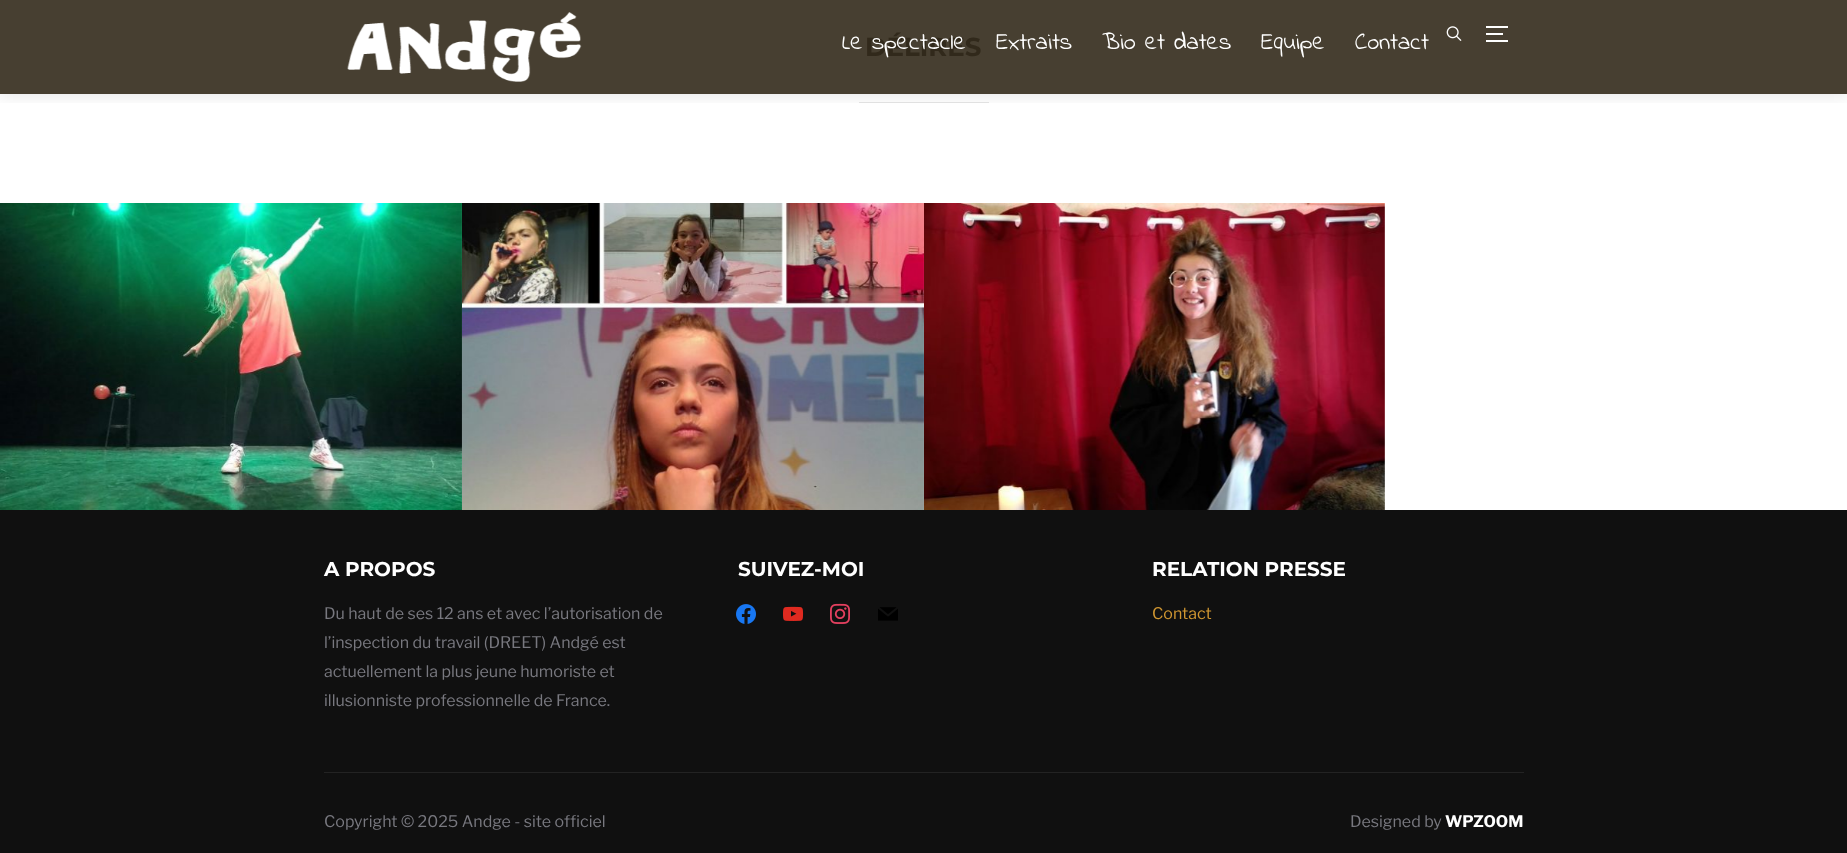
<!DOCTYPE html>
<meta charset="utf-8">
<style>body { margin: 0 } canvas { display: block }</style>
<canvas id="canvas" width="1847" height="853"></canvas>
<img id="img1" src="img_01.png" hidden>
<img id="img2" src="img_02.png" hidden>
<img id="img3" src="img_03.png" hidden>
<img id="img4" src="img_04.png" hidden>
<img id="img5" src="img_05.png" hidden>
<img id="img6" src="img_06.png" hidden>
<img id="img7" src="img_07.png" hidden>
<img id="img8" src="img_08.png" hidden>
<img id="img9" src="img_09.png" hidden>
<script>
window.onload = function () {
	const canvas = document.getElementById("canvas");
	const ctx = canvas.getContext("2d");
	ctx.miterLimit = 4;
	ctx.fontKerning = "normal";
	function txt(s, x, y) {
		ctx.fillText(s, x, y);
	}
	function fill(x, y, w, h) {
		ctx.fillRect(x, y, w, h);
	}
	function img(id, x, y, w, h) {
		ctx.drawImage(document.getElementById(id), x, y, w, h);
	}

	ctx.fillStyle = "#FFFFFF";
	fill(0, 0, 1847, 853);
	ctx.fillStyle = "#473F31";
	fill(0, 0, 1847, 94);
	ctx.fillStyle = "#E6E6E6";
	fill(859, 102, 130, 1);
	ctx.save();
	ctx.beginPath();
	ctx.rect(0, 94, 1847, 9);
	ctx.clip();
	ctx.fillStyle = "rgba(0, 0, 0, 0.1)";
	ctx.filter = "blur(9px)";
	ctx.beginPath();
	ctx.rect(-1, -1, 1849, 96);
	ctx.fill();
	ctx.filter = "none";
	ctx.restore();
	img("img1", 347, 12, 235, 70);
	img("img2", 1446, 26, 16, 15);
	ctx.fillStyle = "#FFFFFF";
	fill(1486, 26, 22, 2);
	fill(1486, 33, 17, 2);
	fill(1486, 40, 22, 2);
	img("img3", 0, 203, 462, 307);
	img("img4", 462, 203, 462, 307);
	img("img5", 924, 203, 461, 307);
	ctx.fillStyle = "#101010";
	fill(0, 510, 1847, 343);
	img("img6", 736, 604, 20, 20);
	img("img7", 783, 606, 21, 15);
	img("img8", 830, 603, 20, 21);
	img("img9", 878, 607, 20, 14);
	ctx.fillStyle = "#232323";
	fill(324, 772, 1200, 1);
	ctx.font = "24px Indie Flower";
	ctx.fillStyle = "#FFFFFF";
	txt("Extraits", 996, 49);
	txt("Bio et dates", 1102, 49);
	txt("Equipe", 1261, 49);
	txt("Contact", 1355, 49);
	ctx.font = "bold 26px Montserrat";
	ctx.fillStyle = "#31291B";
	txt("DÉLIRES", 865, 56);
	ctx.font = "24px Indie Flower";
	ctx.fillStyle = "#FFFFFF";
	txt("Le spectacle", 842, 49);
	ctx.font = "bold 20px Montserrat";
	txt("A PROPOS", 324, 576);
	ctx.font = "16px Libre Franklin";
	ctx.fillStyle = "#78787F";
	txt("Du haut de ses 12 ans et avec l’autorisation de", 324, 619);
	txt("l’inspection du travail (DREET) Andgé est", 324, 648);
	txt("actuellement la plus jeune humoriste et", 324, 677);
	txt("illusionniste professionnelle de France.", 324, 706);
	ctx.font = "bold 20px Montserrat";
	ctx.fillStyle = "#FFFFFF";
	txt("SUIVEZ-MOI", 738, 576);
	txt("RELATION PRESSE", 1152, 576);
	ctx.font = "16px Libre Franklin";
	ctx.fillStyle = "#D19731";
	txt("Contact", 1152, 619);
	ctx.fillStyle = "#78787F";
	txt("Copyright © 2025 Andge - site officiel", 324, 827);
	txt("Designed by", 1350, 827);
	ctx.font = "bold 16px Libre Franklin";
	ctx.fillStyle = "#FFFFFF";
	txt("WPZOOM", 1445, 827);
};
</script>
